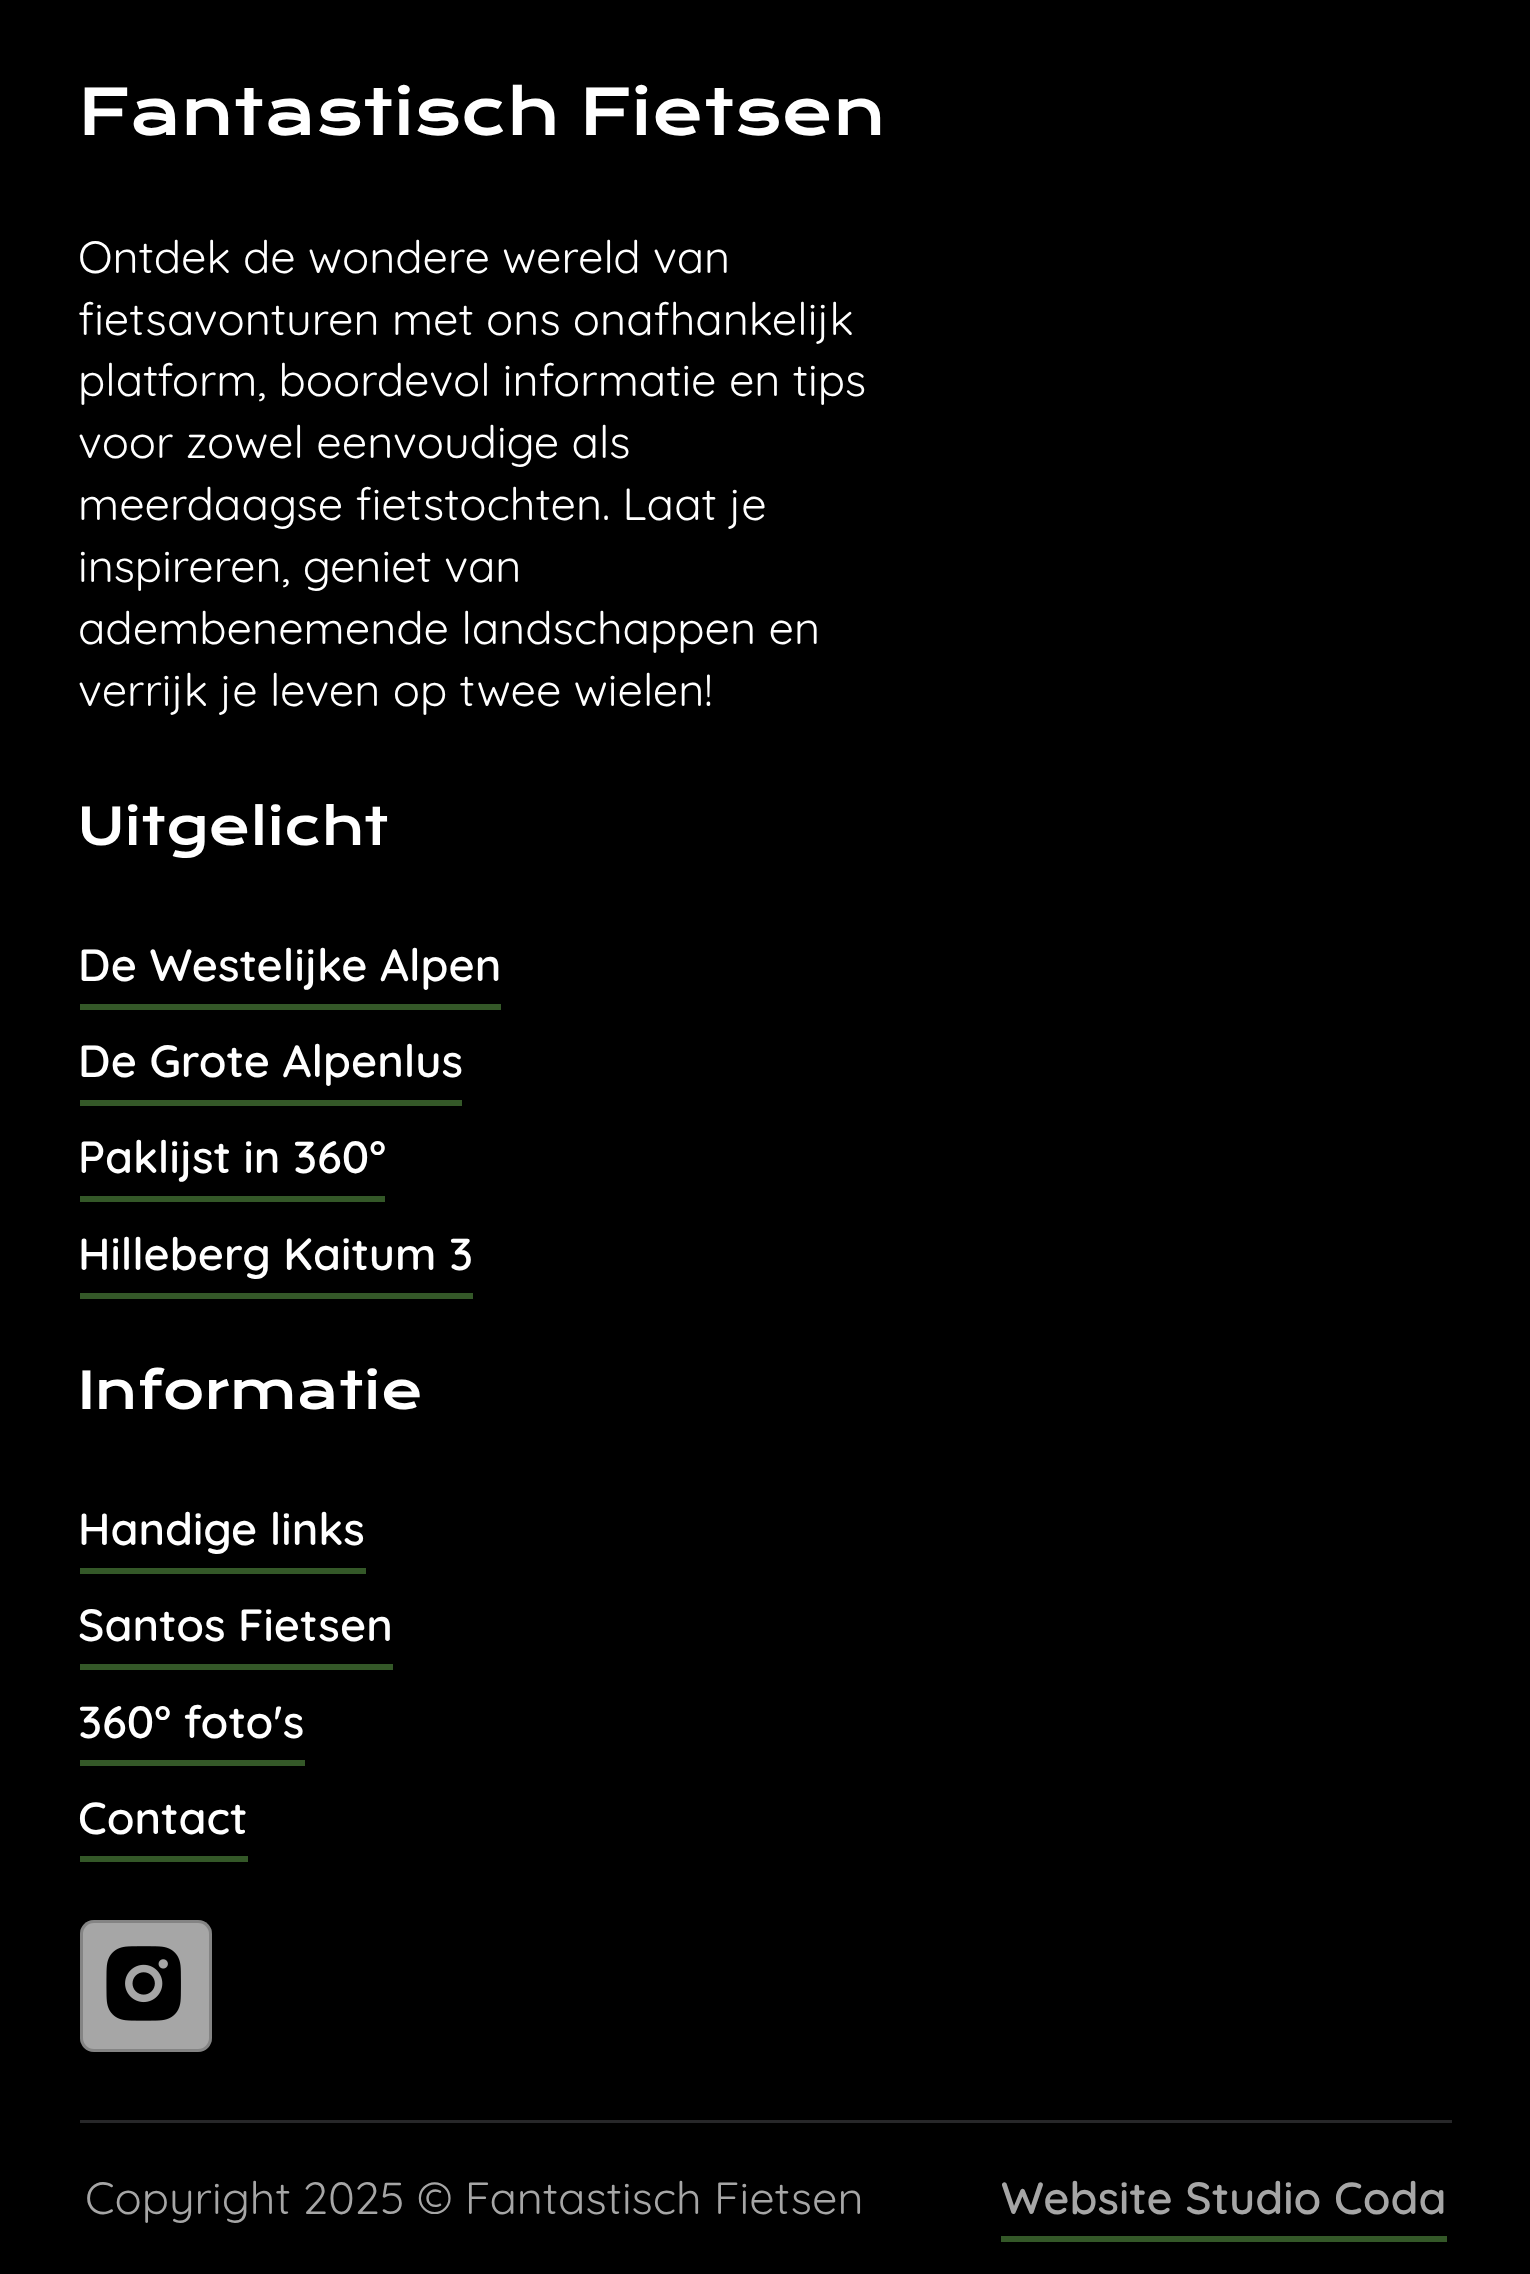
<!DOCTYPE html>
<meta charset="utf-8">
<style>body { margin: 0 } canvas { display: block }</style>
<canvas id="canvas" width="1530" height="2274"></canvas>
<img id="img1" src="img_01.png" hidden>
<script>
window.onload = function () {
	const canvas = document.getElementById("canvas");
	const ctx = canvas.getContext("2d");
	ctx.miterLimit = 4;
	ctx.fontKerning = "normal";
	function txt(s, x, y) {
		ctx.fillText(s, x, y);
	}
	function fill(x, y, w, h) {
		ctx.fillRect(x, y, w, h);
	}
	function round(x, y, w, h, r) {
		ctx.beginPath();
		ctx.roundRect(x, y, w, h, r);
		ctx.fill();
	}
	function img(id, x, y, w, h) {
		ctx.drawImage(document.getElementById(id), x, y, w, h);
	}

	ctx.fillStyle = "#000000";
	fill(0, 0, 1530, 2274);
	ctx.fillStyle = "#345828";
	fill(80, 1004, 421, 6);
	fill(80, 1100, 382, 6);
	fill(80, 1196, 305, 6);
	fill(80, 1293, 393, 6);
	fill(80, 1568, 286, 6);
	fill(80, 1664, 313, 6);
	fill(80, 1760, 225, 6);
	fill(80, 1856, 168, 6);
	ctx.fillStyle = "#A6A6A6";
	round(80, 1920, 132, 132, 14);
	ctx.beginPath();
	ctx.roundRect(81.5, 1921.5, 129, 129, 12.5);
	ctx.strokeStyle = "rgba(0, 0, 0, 0.2)";
	ctx.lineWidth = 3;
	ctx.stroke();
	img("img1", 106, 1946, 75, 75);
	ctx.fillStyle = "#272729";
	fill(80, 2120, 1372, 3);
	ctx.fillStyle = "#345828";
	fill(1001, 2236, 446, 6);
	ctx.font = "62.1px Krona One";
	ctx.fillStyle = "#FFFFFF";
	txt("Fantastisch Fietsen", 78, 135);
	ctx.font = "45.1px Quicksand";
	txt("Ontdek de wondere wereld van", 78, 273);
	txt("fietsavonturen met ons onafhankelijk", 78, 335);
	txt("platform, boordevol informatie en tips", 78, 396);
	txt("voor zowel eenvoudige als", 78, 458);
	txt("meerdaagse fietstochten. Laat je", 78, 520);
	txt("inspireren, geniet van", 78, 582);
	txt("adembenemende landschappen en", 78, 644);
	txt("verrijk je leven op twee wielen!", 78, 706);
	ctx.font = "50.5px Krona One";
	txt("Uitgelicht", 78, 845);
	ctx.font = "600 45.1px Quicksand";
	txt("De Westelijke Alpen", 78, 981);
	txt("De Grote Alpenlus", 78, 1077);
	txt("Paklijst in 360°", 78, 1173);
	txt("Hilleberg Kaitum 3", 78, 1270);
	ctx.font = "50.5px Krona One";
	txt("Informatie", 78, 1409);
	ctx.font = "600 45.1px Quicksand";
	txt("Handige links", 78, 1545);
	txt("Santos Fietsen", 78, 1641);
	txt("360° foto's", 78, 1738);
	txt("Contact", 78, 1834);
	ctx.font = "45.1px Quicksand";
	ctx.fillStyle = "#A6A6A6";
	txt("Copyright 2025 © Fantastisch Fietsen", 85, 2214);
	ctx.font = "600 45.1px Quicksand";
	txt("Website Studio Coda", 1001, 2214);
};
</script>
